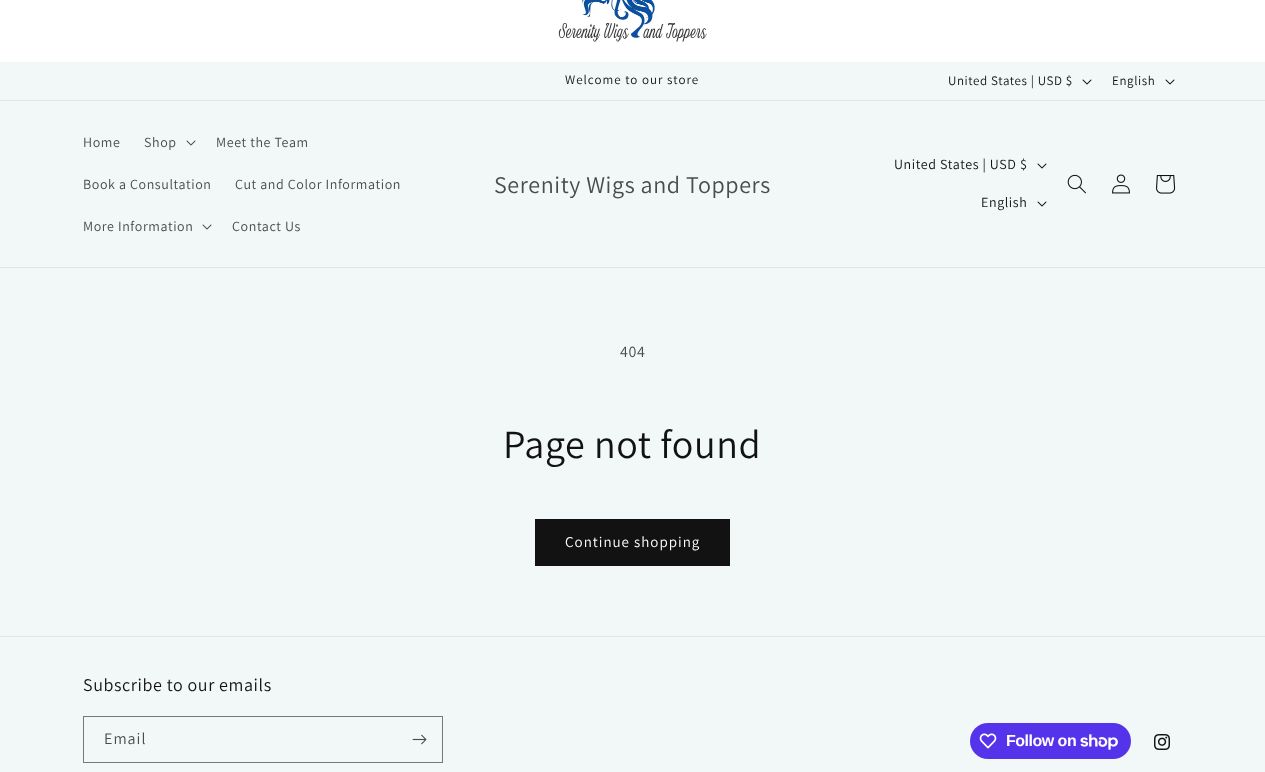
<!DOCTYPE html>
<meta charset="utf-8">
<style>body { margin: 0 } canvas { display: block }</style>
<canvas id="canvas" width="1265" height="772"></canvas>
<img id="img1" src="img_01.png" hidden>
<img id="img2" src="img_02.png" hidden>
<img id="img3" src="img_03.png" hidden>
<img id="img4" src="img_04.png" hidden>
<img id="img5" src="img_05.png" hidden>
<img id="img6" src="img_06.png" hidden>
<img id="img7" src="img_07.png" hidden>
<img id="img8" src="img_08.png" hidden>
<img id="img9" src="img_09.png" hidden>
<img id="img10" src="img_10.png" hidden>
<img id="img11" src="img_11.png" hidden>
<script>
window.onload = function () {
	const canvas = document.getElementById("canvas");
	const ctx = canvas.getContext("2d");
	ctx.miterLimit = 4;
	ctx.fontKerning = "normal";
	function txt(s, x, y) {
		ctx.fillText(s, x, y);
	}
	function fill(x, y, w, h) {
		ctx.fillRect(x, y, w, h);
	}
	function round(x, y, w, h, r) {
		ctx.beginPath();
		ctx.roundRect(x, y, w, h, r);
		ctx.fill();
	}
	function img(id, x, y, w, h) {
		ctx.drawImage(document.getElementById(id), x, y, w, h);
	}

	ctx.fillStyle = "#F2F7F7";
	fill(0, 0, 1265, 772);
	ctx.fillStyle = "#FFFFFF";
	fill(0, 0, 1265, 62);
	img("img1", 558, 0, 149, 42);
	ctx.fillStyle = "#E0E5E5";
	fill(0, 100, 1265, 1);
	img("img2", 1082, 79, 10, 6);
	img("img2", 1165, 79, 10, 6);
	ctx.fillStyle = "#DEE4E7";
	fill(0, 267, 1265, 1);
	img("img3", 186, 140, 10, 6);
	img("img3", 202, 224, 10, 6);
	img("img4", 1037, 163, 10, 6);
	img("img4", 1037, 201, 10, 6);
	img("img5", 1067, 174, 19, 20);
	img("img6", 1112, 174, 18, 20);
	img("img7", 1156, 175, 20, 19);
	ctx.fillStyle = "#121212";
	fill(535, 519, 195, 47);
	ctx.fillStyle = "#E0E5E5";
	fill(0, 636, 1265, 1);
	ctx.strokeStyle = "#777979";
	ctx.strokeRect(83.5, 716.5, 359, 46);
	img("img8", 412, 734, 15, 11);
	ctx.fillStyle = "#5433EB";
	round(970, 723, 161, 36, 18);
	img("img9", 979, 733, 18, 16);
	img("img10", 1080, 734, 38, 16);
	img("img11", 1154, 734, 16, 16);
	ctx.letterSpacing = "1px";
	ctx.font = "13px Assistant";
	ctx.fillStyle = "#121212";
	txt("Welcome to our store", 565, 84);
	ctx.letterSpacing = "0.6px";
	txt("United States | USD $", 948, 85);
	txt("English", 1112, 85);
	ctx.font = "14px Assistant";
	ctx.fillStyle = "#4A4B4B";
	txt("Home", 83, 147);
	txt("Shop", 144, 147);
	txt("Meet the Team", 216, 147);
	txt("Book a Consultation", 83, 189);
	txt("Cut and Color Information", 235, 189);
	txt("More Information", 83, 231);
	txt("Contact Us", 232, 231);
	ctx.font = "24px Assistant";
	txt("Serenity Wigs and Toppers", 494, 193);
	ctx.font = "14px Assistant";
	ctx.fillStyle = "#121212";
	txt("United States | USD $", 894, 169);
	txt("English", 981, 207);
	ctx.font = "16px Assistant";
	ctx.fillStyle = "#4A4B4B";
	txt("404", 620, 357);
	ctx.font = "40px Assistant";
	ctx.fillStyle = "#121212";
	txt("Page not found", 503, 458);
	ctx.letterSpacing = "1px";
	ctx.font = "15px Assistant";
	ctx.fillStyle = "#FFFFFF";
	txt("Continue shopping", 565, 547);
	ctx.letterSpacing = "0.6px";
	ctx.font = "18px Assistant";
	ctx.fillStyle = "#121212";
	txt("Subscribe to our emails", 83, 691);
	ctx.letterSpacing = "1px";
	ctx.font = "16px Assistant";
	ctx.fillStyle = "#4A4B4B";
	txt("Email", 104, 744);
	ctx.letterSpacing = "-0.5px";
	ctx.font = "bold 16px Liberation Sans";
	ctx.fillStyle = "#FFFFFF";
	txt("Follow on", 1006, 746);
};
</script>
